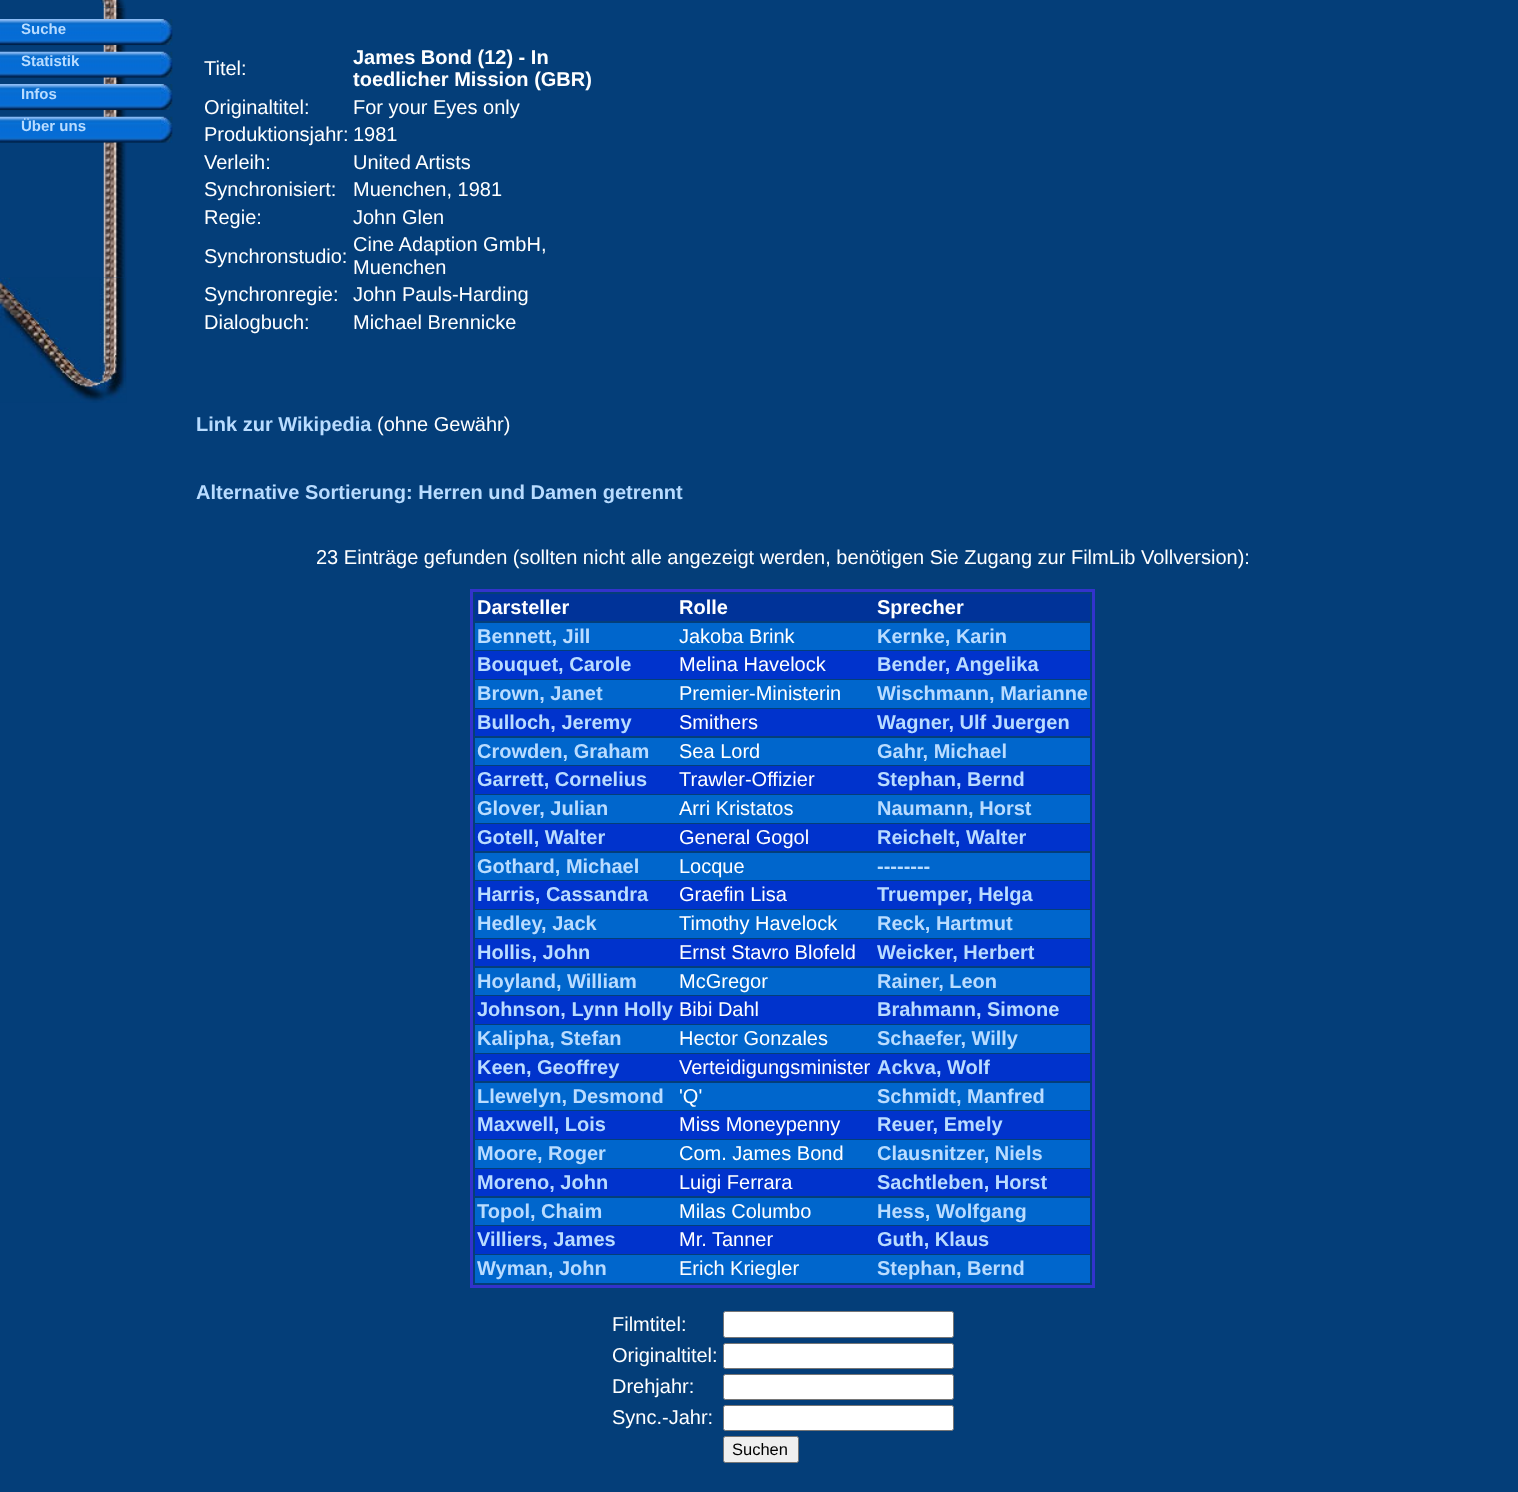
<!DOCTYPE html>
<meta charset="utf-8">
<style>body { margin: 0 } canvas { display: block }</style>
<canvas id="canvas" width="1518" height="1492"></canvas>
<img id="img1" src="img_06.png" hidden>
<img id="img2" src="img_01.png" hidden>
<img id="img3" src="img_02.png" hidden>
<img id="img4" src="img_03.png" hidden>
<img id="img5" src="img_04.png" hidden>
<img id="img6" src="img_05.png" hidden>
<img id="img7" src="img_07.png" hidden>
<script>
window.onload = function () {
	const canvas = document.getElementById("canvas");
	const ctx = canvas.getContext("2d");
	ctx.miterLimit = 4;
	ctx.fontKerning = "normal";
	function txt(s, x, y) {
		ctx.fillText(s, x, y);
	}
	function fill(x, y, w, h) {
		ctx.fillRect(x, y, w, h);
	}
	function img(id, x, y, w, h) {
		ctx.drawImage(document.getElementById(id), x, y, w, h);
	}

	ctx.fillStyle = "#043E79";
	fill(0, 0, 1518, 1492);
	img("img1", 103, 7, 24, 271);
	img("img2", 0, 19, 173, 27);
	img("img3", 0, 51, 173, 27);
	img("img4", 0, 84, 173, 27);
	img("img5", 0, 116, 173, 27);
	img("img6", 100, 0, 26, 8);
	img("img7", 0, 277, 127, 126);
	ctx.strokeStyle = "#3333CC";
	ctx.lineWidth = 3;
	ctx.strokeRect(471.5, 590.5, 622, 696);
	ctx.fillStyle = "#003399";
	fill(475, 594, 615, 27);
	ctx.fillStyle = "#0066CC";
	fill(475, 623, 615, 27);
	ctx.fillStyle = "#0033CC";
	fill(475, 651, 615, 28);
	ctx.fillStyle = "#0066CC";
	fill(475, 680, 615, 28);
	ctx.fillStyle = "#0033CC";
	fill(475, 709, 615, 27);
	ctx.fillStyle = "#0066CC";
	fill(475, 738, 615, 27);
	ctx.fillStyle = "#0033CC";
	fill(475, 766, 615, 28);
	ctx.fillStyle = "#0066CC";
	fill(475, 795, 615, 28);
	ctx.fillStyle = "#0033CC";
	fill(475, 824, 615, 27);
	ctx.fillStyle = "#0066CC";
	fill(475, 853, 615, 27);
	ctx.fillStyle = "#0033CC";
	fill(475, 881, 615, 28);
	ctx.fillStyle = "#0066CC";
	fill(475, 910, 615, 28);
	ctx.fillStyle = "#0033CC";
	fill(475, 939, 615, 27);
	ctx.fillStyle = "#0066CC";
	fill(475, 968, 615, 27);
	ctx.fillStyle = "#0033CC";
	fill(475, 996, 615, 28);
	ctx.fillStyle = "#0066CC";
	fill(475, 1025, 615, 28);
	ctx.fillStyle = "#0033CC";
	fill(475, 1054, 615, 27);
	ctx.fillStyle = "#0066CC";
	fill(475, 1083, 615, 27);
	ctx.fillStyle = "#0033CC";
	fill(475, 1111, 615, 28);
	ctx.fillStyle = "#0066CC";
	fill(475, 1140, 615, 28);
	ctx.fillStyle = "#0033CC";
	fill(475, 1169, 615, 27);
	ctx.fillStyle = "#0066CC";
	fill(475, 1198, 615, 27);
	ctx.fillStyle = "#0033CC";
	fill(475, 1226, 615, 28);
	ctx.fillStyle = "#0066CC";
	fill(475, 1255, 615, 28);
	ctx.fillStyle = "#FFFFFF";
	ctx.beginPath();
	ctx.roundRect(723.5, 1311.5, 230, 26, 2);
	ctx.fill();
	ctx.strokeStyle = "#767676";
	ctx.lineWidth = 1;
	ctx.stroke();
	ctx.beginPath();
	ctx.roundRect(723.5, 1343.5, 230, 25, 2);
	ctx.fill();
	ctx.stroke();
	ctx.beginPath();
	ctx.roundRect(723.5, 1374.5, 230, 25, 2);
	ctx.fill();
	ctx.stroke();
	ctx.beginPath();
	ctx.roundRect(723.5, 1405.5, 230, 25, 2);
	ctx.fill();
	ctx.stroke();
	ctx.fillStyle = "#EFEFEF";
	ctx.beginPath();
	ctx.roundRect(723.5, 1436.5, 75, 26, 2);
	ctx.fill();
	ctx.stroke();
	ctx.font = "bold 15px Liberation Sans";
	ctx.fillStyle = "#B9DCFF";
	txt("Suche", 21, 34);
	txt("Statistik", 21, 66);
	txt("Infos", 21, 99);
	txt("Über uns", 21, 131);
	ctx.font = "20px Liberation Sans";
	ctx.fillStyle = "#FFFFFF";
	txt("Titel:", 204, 75);
	ctx.font = "bold 20px Liberation Sans";
	txt("James Bond (12) - In", 353, 64);
	txt("toedlicher Mission (GBR)", 353, 86);
	ctx.font = "20px Liberation Sans";
	txt("Originaltitel:", 204, 114);
	txt("For your Eyes only", 353, 114);
	txt("Produktionsjahr:", 204, 141);
	txt("1981", 353, 141);
	txt("Verleih:", 204, 169);
	txt("United Artists", 353, 169);
	txt("Synchronisiert:", 204, 196);
	txt("Muenchen, 1981", 353, 196);
	txt("Regie:", 204, 224);
	txt("John Glen", 353, 224);
	txt("Synchronstudio:", 204, 263);
	txt("Cine Adaption GmbH,", 353, 251);
	txt("Muenchen", 353, 274);
	txt("Synchronregie:", 204, 301);
	txt("John Pauls-Harding", 353, 301);
	txt("Dialogbuch:", 204, 329);
	txt("Michael Brennicke", 353, 329);
	ctx.font = "bold 20px Liberation Sans";
	ctx.fillStyle = "#B9DCFF";
	txt("Link zur Wikipedia", 196, 431);
	ctx.font = "20px Liberation Sans";
	ctx.fillStyle = "#FFFFFF";
	txt("(ohne Gewähr)", 377, 431);
	ctx.font = "bold 20px Liberation Sans";
	ctx.fillStyle = "#B9DCFF";
	txt("Alternative Sortierung: Herren und Damen getrennt", 196, 499);
	ctx.font = "20px Liberation Sans";
	ctx.fillStyle = "#FFFFFF";
	txt("23 Einträge gefunden (sollten nicht alle angezeigt werden, benötigen Sie Zugang zur FilmLib Vollversion):", 316, 564);
	ctx.font = "bold 20px Liberation Sans";
	txt("Darsteller", 477, 614);
	txt("Rolle", 679, 614);
	txt("Sprecher", 877, 614);
	ctx.fillStyle = "#B9DCFF";
	txt("Bennett, Jill", 477, 643);
	ctx.font = "20px Liberation Sans";
	ctx.fillStyle = "#FFFFFF";
	txt("Jakoba Brink", 679, 643);
	ctx.font = "bold 20px Liberation Sans";
	ctx.fillStyle = "#B9DCFF";
	txt("Kernke, Karin", 877, 643);
	txt("Bouquet, Carole", 477, 671);
	ctx.font = "20px Liberation Sans";
	ctx.fillStyle = "#FFFFFF";
	txt("Melina Havelock", 679, 671);
	ctx.font = "bold 20px Liberation Sans";
	ctx.fillStyle = "#B9DCFF";
	txt("Bender, Angelika", 877, 671);
	txt("Brown, Janet", 477, 700);
	ctx.font = "20px Liberation Sans";
	ctx.fillStyle = "#FFFFFF";
	txt("Premier-Ministerin", 679, 700);
	ctx.font = "bold 20px Liberation Sans";
	ctx.fillStyle = "#B9DCFF";
	txt("Wischmann, Marianne", 877, 700);
	txt("Bulloch, Jeremy", 477, 729);
	ctx.font = "20px Liberation Sans";
	ctx.fillStyle = "#FFFFFF";
	txt("Smithers", 679, 729);
	ctx.font = "bold 20px Liberation Sans";
	ctx.fillStyle = "#B9DCFF";
	txt("Wagner, Ulf Juergen", 877, 729);
	txt("Crowden, Graham", 477, 758);
	ctx.font = "20px Liberation Sans";
	ctx.fillStyle = "#FFFFFF";
	txt("Sea Lord", 679, 758);
	ctx.font = "bold 20px Liberation Sans";
	ctx.fillStyle = "#B9DCFF";
	txt("Gahr, Michael", 877, 758);
	txt("Garrett, Cornelius", 477, 786);
	ctx.font = "20px Liberation Sans";
	ctx.fillStyle = "#FFFFFF";
	txt("Trawler-Offizier", 679, 786);
	ctx.font = "bold 20px Liberation Sans";
	ctx.fillStyle = "#B9DCFF";
	txt("Stephan, Bernd", 877, 786);
	txt("Glover, Julian", 477, 815);
	ctx.font = "20px Liberation Sans";
	ctx.fillStyle = "#FFFFFF";
	txt("Arri Kristatos", 679, 815);
	ctx.font = "bold 20px Liberation Sans";
	ctx.fillStyle = "#B9DCFF";
	txt("Naumann, Horst", 877, 815);
	txt("Gotell, Walter", 477, 844);
	ctx.font = "20px Liberation Sans";
	ctx.fillStyle = "#FFFFFF";
	txt("General Gogol", 679, 844);
	ctx.font = "bold 20px Liberation Sans";
	ctx.fillStyle = "#B9DCFF";
	txt("Reichelt, Walter", 877, 844);
	txt("Gothard, Michael", 477, 873);
	ctx.font = "20px Liberation Sans";
	ctx.fillStyle = "#FFFFFF";
	txt("Locque", 679, 873);
	ctx.font = "bold 20px Liberation Sans";
	ctx.fillStyle = "#B9DCFF";
	txt("--------", 877, 873);
	txt("Harris, Cassandra", 477, 901);
	ctx.font = "20px Liberation Sans";
	ctx.fillStyle = "#FFFFFF";
	txt("Graefin Lisa", 679, 901);
	ctx.font = "bold 20px Liberation Sans";
	ctx.fillStyle = "#B9DCFF";
	txt("Truemper, Helga", 877, 901);
	txt("Hedley, Jack", 477, 930);
	ctx.font = "20px Liberation Sans";
	ctx.fillStyle = "#FFFFFF";
	txt("Timothy Havelock", 679, 930);
	ctx.font = "bold 20px Liberation Sans";
	ctx.fillStyle = "#B9DCFF";
	txt("Reck, Hartmut", 877, 930);
	txt("Hollis, John", 477, 959);
	ctx.font = "20px Liberation Sans";
	ctx.fillStyle = "#FFFFFF";
	txt("Ernst Stavro Blofeld", 679, 959);
	ctx.font = "bold 20px Liberation Sans";
	ctx.fillStyle = "#B9DCFF";
	txt("Weicker, Herbert", 877, 959);
	txt("Hoyland, William", 477, 988);
	ctx.font = "20px Liberation Sans";
	ctx.fillStyle = "#FFFFFF";
	txt("McGregor", 679, 988);
	ctx.font = "bold 20px Liberation Sans";
	ctx.fillStyle = "#B9DCFF";
	txt("Rainer, Leon", 877, 988);
	txt("Johnson, Lynn Holly", 477, 1016);
	ctx.font = "20px Liberation Sans";
	ctx.fillStyle = "#FFFFFF";
	txt("Bibi Dahl", 679, 1016);
	ctx.font = "bold 20px Liberation Sans";
	ctx.fillStyle = "#B9DCFF";
	txt("Brahmann, Simone", 877, 1016);
	txt("Kalipha, Stefan", 477, 1045);
	ctx.font = "20px Liberation Sans";
	ctx.fillStyle = "#FFFFFF";
	txt("Hector Gonzales", 679, 1045);
	ctx.font = "bold 20px Liberation Sans";
	ctx.fillStyle = "#B9DCFF";
	txt("Schaefer, Willy", 877, 1045);
	txt("Keen, Geoffrey", 477, 1074);
	ctx.font = "20px Liberation Sans";
	ctx.fillStyle = "#FFFFFF";
	txt("Verteidigungsminister", 679, 1074);
	ctx.font = "bold 20px Liberation Sans";
	ctx.fillStyle = "#B9DCFF";
	txt("Ackva, Wolf", 877, 1074);
	txt("Llewelyn, Desmond", 477, 1103);
	ctx.font = "20px Liberation Sans";
	ctx.fillStyle = "#FFFFFF";
	txt("'Q'", 679, 1103);
	ctx.font = "bold 20px Liberation Sans";
	ctx.fillStyle = "#B9DCFF";
	txt("Schmidt, Manfred", 877, 1103);
	txt("Maxwell, Lois", 477, 1131);
	ctx.font = "20px Liberation Sans";
	ctx.fillStyle = "#FFFFFF";
	txt("Miss Moneypenny", 679, 1131);
	ctx.font = "bold 20px Liberation Sans";
	ctx.fillStyle = "#B9DCFF";
	txt("Reuer, Emely", 877, 1131);
	txt("Moore, Roger", 477, 1160);
	ctx.font = "20px Liberation Sans";
	ctx.fillStyle = "#FFFFFF";
	txt("Com. James Bond", 679, 1160);
	ctx.font = "bold 20px Liberation Sans";
	ctx.fillStyle = "#B9DCFF";
	txt("Clausnitzer, Niels", 877, 1160);
	txt("Moreno, John", 477, 1189);
	ctx.font = "20px Liberation Sans";
	ctx.fillStyle = "#FFFFFF";
	txt("Luigi Ferrara", 679, 1189);
	ctx.font = "bold 20px Liberation Sans";
	ctx.fillStyle = "#B9DCFF";
	txt("Sachtleben, Horst", 877, 1189);
	txt("Topol, Chaim", 477, 1218);
	ctx.font = "20px Liberation Sans";
	ctx.fillStyle = "#FFFFFF";
	txt("Milas Columbo", 679, 1218);
	ctx.font = "bold 20px Liberation Sans";
	ctx.fillStyle = "#B9DCFF";
	txt("Hess, Wolfgang", 877, 1218);
	txt("Villiers, James", 477, 1246);
	ctx.font = "20px Liberation Sans";
	ctx.fillStyle = "#FFFFFF";
	txt("Mr. Tanner", 679, 1246);
	ctx.font = "bold 20px Liberation Sans";
	ctx.fillStyle = "#B9DCFF";
	txt("Guth, Klaus", 877, 1246);
	txt("Wyman, John", 477, 1275);
	ctx.font = "20px Liberation Sans";
	ctx.fillStyle = "#FFFFFF";
	txt("Erich Kriegler", 679, 1275);
	ctx.font = "bold 20px Liberation Sans";
	ctx.fillStyle = "#B9DCFF";
	txt("Stephan, Bernd", 877, 1275);
	ctx.font = "20px Liberation Sans";
	ctx.fillStyle = "#FFFFFF";
	txt("Filmtitel:", 612, 1331);
	txt("Originaltitel:", 612, 1362);
	txt("Drehjahr:", 612, 1393);
	txt("Sync.-Jahr:", 612, 1424);
	ctx.font = "16.5px Liberation Sans";
	ctx.fillStyle = "#000000";
	txt("Suchen", 732, 1455);
};
</script>
